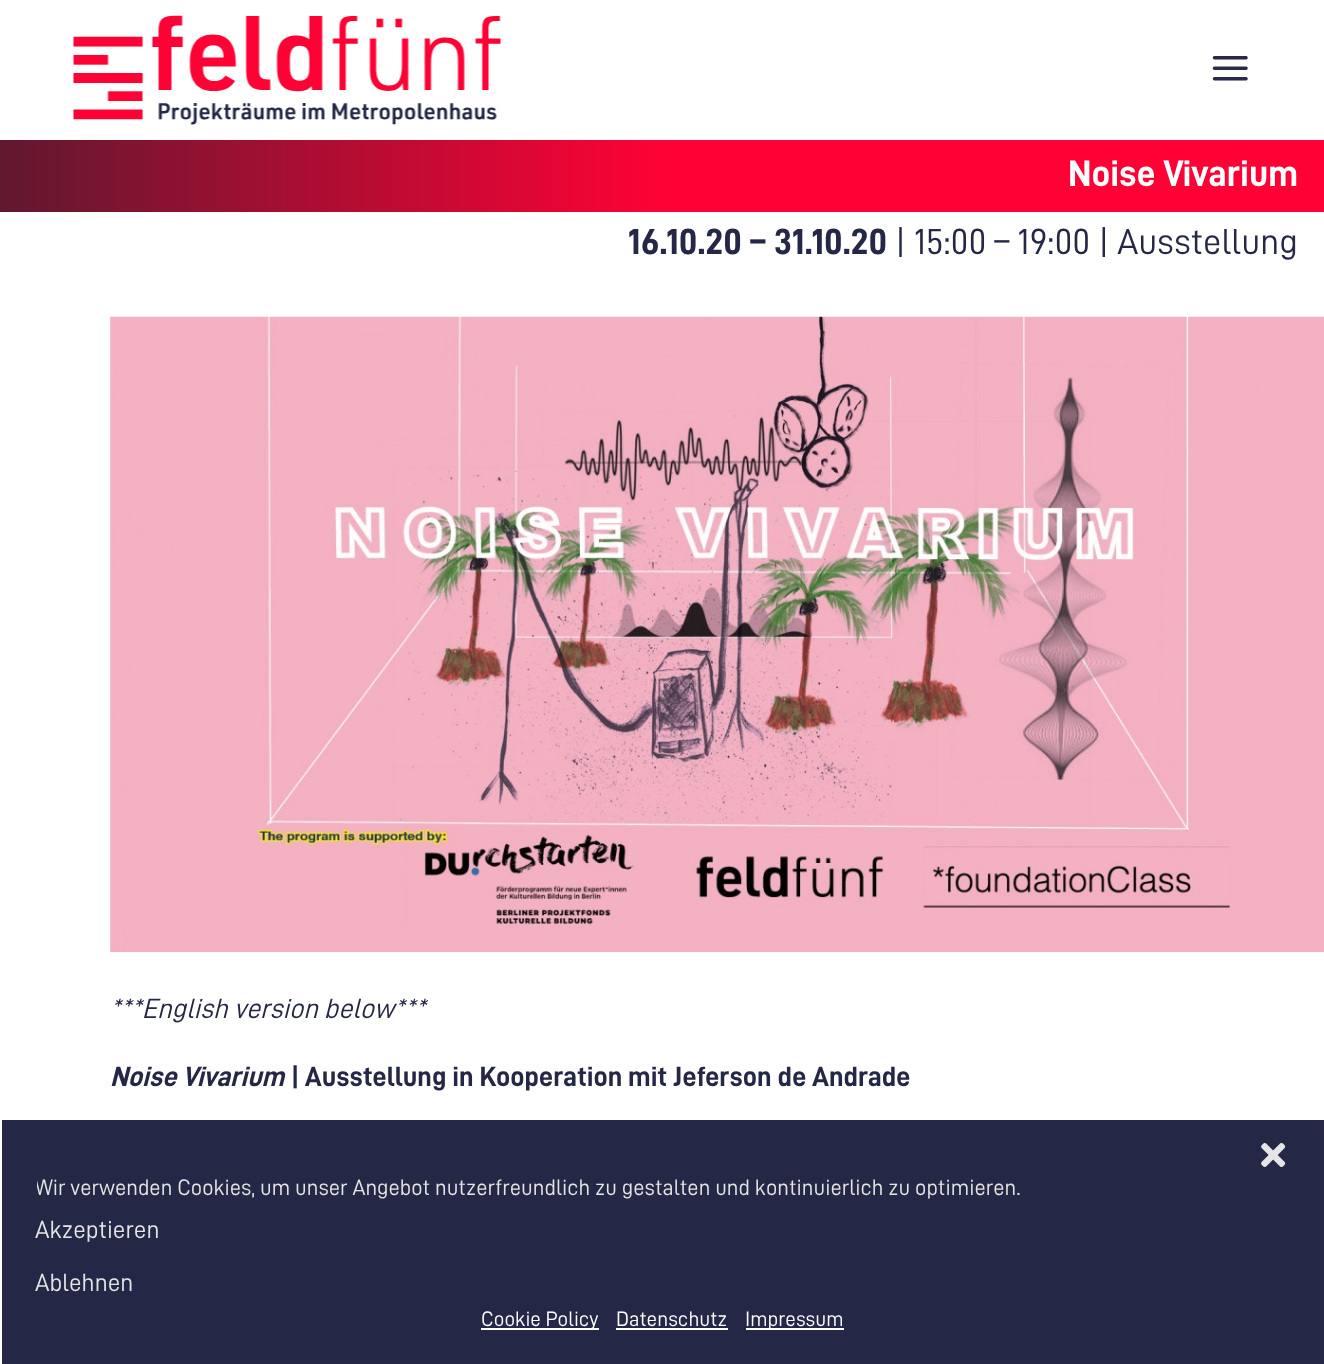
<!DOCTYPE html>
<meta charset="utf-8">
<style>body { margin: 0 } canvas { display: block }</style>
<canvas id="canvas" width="1324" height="1364"></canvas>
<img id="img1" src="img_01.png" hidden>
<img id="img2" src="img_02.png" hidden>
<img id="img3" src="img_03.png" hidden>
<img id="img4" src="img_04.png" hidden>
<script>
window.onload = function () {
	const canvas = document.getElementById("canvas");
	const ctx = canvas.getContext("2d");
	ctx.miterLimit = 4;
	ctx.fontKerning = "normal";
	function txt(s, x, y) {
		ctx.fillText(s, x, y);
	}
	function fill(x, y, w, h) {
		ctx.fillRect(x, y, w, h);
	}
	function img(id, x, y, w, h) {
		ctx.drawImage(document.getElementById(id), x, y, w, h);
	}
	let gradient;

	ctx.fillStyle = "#FFFFFF";
	fill(0, 0, 1324, 1364);
	img("img1", 73, 15, 428, 110);
	img("img2", 1212, 56, 36, 25);
	gradient = ctx.createLinearGradient(0, 176, 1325, 176);
	gradient.addColorStop(0, "#61182F");
	gradient.addColorStop(0.5, "#FE0235");
	ctx.fillStyle = gradient;
	fill(0, 140, 1324, 72);
	img("img3", 110, 316, 1214, 636);
	ctx.fillStyle = "#242746";
	fill(2, 1120, 1322, 244);
	img("img4", 1261, 1143, 25, 24);
	ctx.fillStyle = "#FFFFFF";
	fill(481, 1328, 118, 2);
	fill(616, 1328, 112, 2);
	fill(746, 1328, 98, 2);
	ctx.font = "bold 37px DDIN";
	txt("Noise Vivarium", 1068, 186);
	ctx.font = "bold 36.4px DDIN";
	ctx.fillStyle = "#242746";
	txt("16.10.20 – 31.10.20", 628, 254);
	ctx.font = "36.4px DDIN";
	txt("| 15:00 – 19:00 | Ausstellung", 895, 254);
	ctx.font = "italic 28px DDIN";
	txt("***English version below***", 110, 1018);
	ctx.font = "italic bold 28px DDIN";
	txt("Noise Vivarium", 110, 1086);
	ctx.font = "bold 28px DDIN";
	txt("| Ausstellung in Kooperation mit Jeferson de Andrade", 291, 1086);
	ctx.save();
	ctx.beginPath();
	ctx.rect(37, 1173, 1255, 40);
	ctx.clip();
	ctx.font = "22.4px DDIN";
	ctx.fillStyle = "#E5E5E5";
	txt("Wir verwenden Cookies, um unser Angebot nutzerfreundlich zu gestalten und kontinuierlich zu optimieren.", 35, 1195);
	ctx.restore();
	ctx.font = "25px DDIN";
	ctx.fillStyle = "#E5E5E5";
	txt("Akzeptieren", 35, 1238);
	txt("Ablehnen", 35, 1291);
	ctx.font = "21px DDIN";
	ctx.fillStyle = "#FFFFFF";
	txt("Cookie Policy", 481, 1326);
	txt("Datenschutz", 616, 1326);
	txt("Impressum", 745, 1326);
};
</script>
